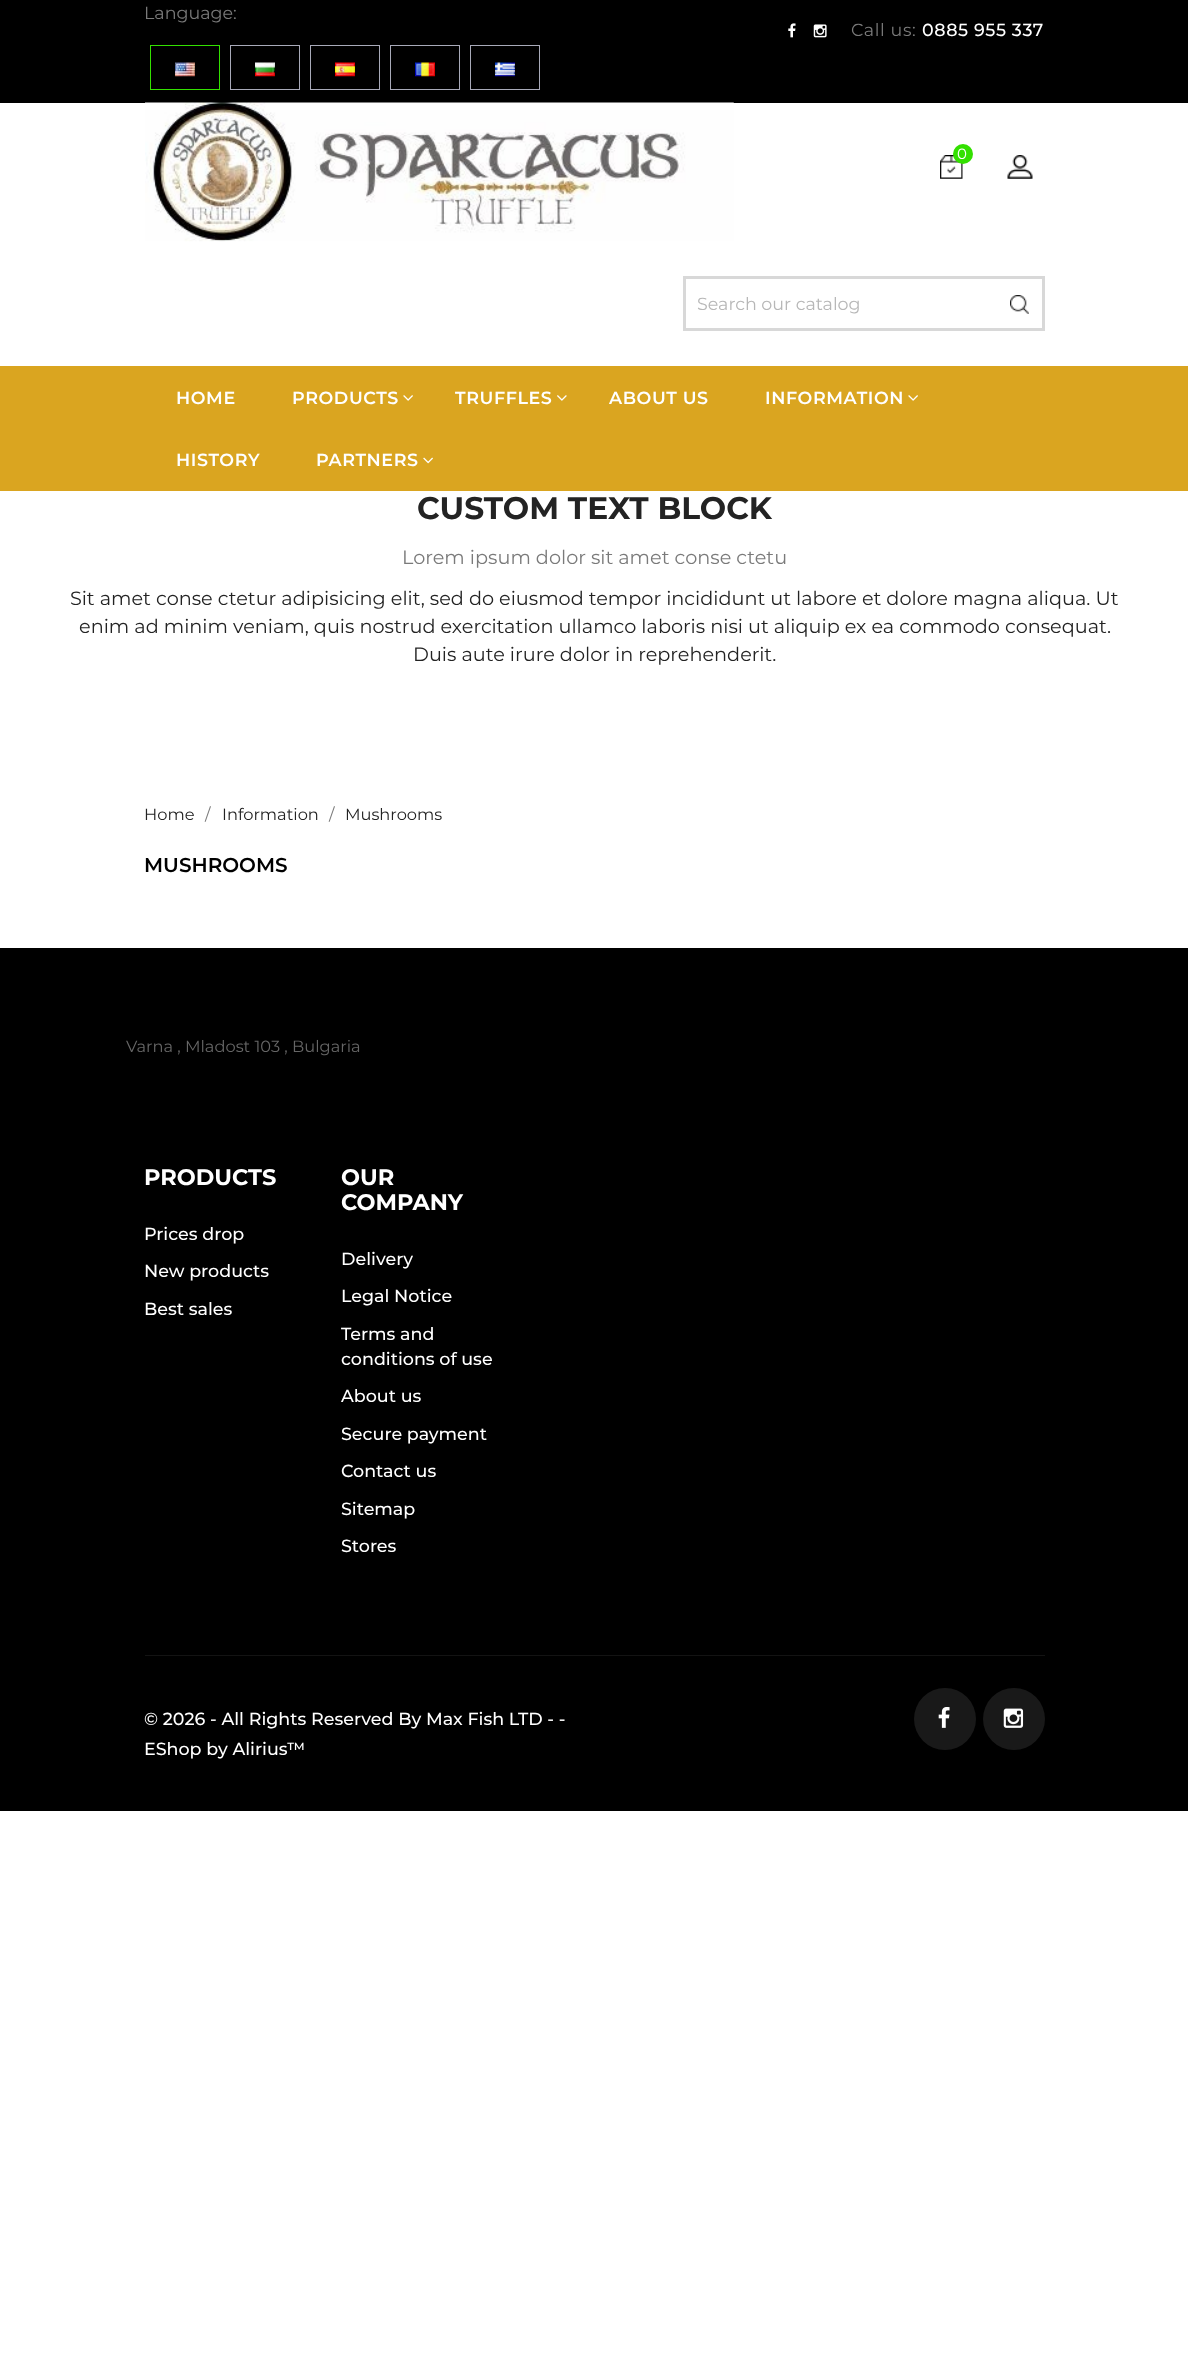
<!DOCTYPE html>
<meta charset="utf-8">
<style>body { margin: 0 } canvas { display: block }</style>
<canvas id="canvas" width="1188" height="2362"></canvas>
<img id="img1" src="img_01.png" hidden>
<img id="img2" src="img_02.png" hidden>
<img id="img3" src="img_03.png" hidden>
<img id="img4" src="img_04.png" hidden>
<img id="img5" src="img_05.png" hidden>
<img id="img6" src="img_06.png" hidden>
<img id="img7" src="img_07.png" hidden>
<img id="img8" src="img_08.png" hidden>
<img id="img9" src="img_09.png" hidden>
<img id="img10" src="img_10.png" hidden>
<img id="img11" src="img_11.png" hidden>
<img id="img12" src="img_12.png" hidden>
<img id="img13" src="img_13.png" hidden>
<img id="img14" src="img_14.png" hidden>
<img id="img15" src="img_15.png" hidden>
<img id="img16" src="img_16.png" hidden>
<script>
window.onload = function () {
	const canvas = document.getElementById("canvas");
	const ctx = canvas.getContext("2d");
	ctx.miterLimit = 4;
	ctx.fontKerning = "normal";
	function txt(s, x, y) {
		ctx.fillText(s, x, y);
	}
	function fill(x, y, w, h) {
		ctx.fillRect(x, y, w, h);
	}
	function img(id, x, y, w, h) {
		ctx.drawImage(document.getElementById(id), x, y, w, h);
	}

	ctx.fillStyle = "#FFFFFF";
	fill(0, 0, 1188, 2362);
	ctx.fillStyle = "#000000";
	fill(0, 0, 1188, 103);
	ctx.strokeStyle = "#33E000";
	ctx.strokeRect(150.5, 45.5, 69, 44);
	img("img1", 175, 62, 20, 15);
	ctx.strokeStyle = "#A8AAB9";
	ctx.strokeRect(230.5, 45.5, 69, 44);
	img("img2", 255, 62, 20, 15);
	ctx.strokeRect(310.5, 45.5, 69, 44);
	img("img3", 335, 62, 20, 15);
	ctx.strokeRect(390.5, 45.5, 69, 44);
	img("img4", 415, 62, 20, 15);
	ctx.strokeRect(470.5, 45.5, 69, 44);
	img("img5", 495, 62, 20, 15);
	img("img6", 788, 23, 8, 15);
	img("img7", 813, 24, 14, 14);
	img("img8", 145, 102, 589, 140);
	img("img9", 940, 155, 23, 24);
	ctx.fillStyle = "#33E000";
	ctx.beginPath();
	ctx.arc(963, 154, 10, 0, Math.PI * 2);
	ctx.fill();
	img("img10", 1007, 155, 26, 24);
	ctx.strokeStyle = "#D8D8D8";
	ctx.lineWidth = 3;
	ctx.strokeRect(684.5, 277.5, 359, 52);
	img("img11", 1010, 295, 19, 19);
	ctx.fillStyle = "#DAA520";
	fill(0, 366, 1188, 125);
	img("img12", 403, 395, 10, 6);
	img("img13", 557, 395, 10, 6);
	img("img12", 908, 395, 10, 6);
	img("img14", 423, 457, 10, 7);
	ctx.fillStyle = "#000000";
	fill(0, 948, 1188, 863);
	ctx.fillStyle = "#131313";
	fill(145, 1655, 900, 1);
	ctx.fillStyle = "#191919";
	ctx.beginPath();
	ctx.arc(945, 1719, 31, 0, Math.PI * 2);
	ctx.fill();
	img("img15", 938, 1707, 12, 21);
	ctx.beginPath();
	ctx.arc(1014, 1719, 31, 0, Math.PI * 2);
	ctx.fill();
	img("img16", 1003, 1708, 21, 20);
	ctx.font = "17.5px Montserrat";
	ctx.fillStyle = "#7A7A7A";
	txt("Language:", 144, 19);
	ctx.letterSpacing = "0.6px";
	txt("Call us:", 851, 36);
	ctx.font = "500 17.5px Montserrat";
	ctx.fillStyle = "#FFFFFF";
	txt("0885 955 337", 922, 36);
	ctx.letterSpacing = "0px";
	ctx.font = "15px Montserrat";
	txt("0", 957, 159);
	ctx.font = "17.5px Montserrat";
	ctx.fillStyle = "#B7B7B7";
	txt("Search our catalog", 697, 310);
	ctx.letterSpacing = "0.6px";
	ctx.font = "600 17.5px Montserrat";
	ctx.fillStyle = "#FFFFFF";
	txt("HOME", 176, 404);
	txt("PRODUCTS", 292, 404);
	txt("TRUFFLES", 455, 404);
	txt("ABOUT US", 609, 404);
	txt("INFORMATION", 765, 404);
	txt("HISTORY", 176, 466);
	txt("PARTNERS", 316, 466);
	ctx.letterSpacing = "0px";
	ctx.font = "bold 31.25px Montserrat";
	ctx.fillStyle = "#232323";
	txt("CUSTOM TEXT BLOCK", 417, 519);
	ctx.font = "19.25px Montserrat";
	ctx.fillStyle = "#7A7A7A";
	txt("Lorem ipsum dolor sit amet conse ctetu", 402, 564);
	ctx.fillStyle = "#232323";
	txt("Sit amet conse ctetur adipisicing elit, sed do eiusmod tempor incididunt ut labore et dolore magna aliqua. Ut", 70, 605);
	txt("enim ad minim veniam, quis nostrud exercitation ullamco laboris nisi ut aliquip ex ea commodo consequat.", 79, 633);
	txt("Duis aute irure dolor in reprehenderit.", 413, 661);
	ctx.font = "16.25px Montserrat";
	txt("Home", 144, 820);
	ctx.fillStyle = "#7A7A7A";
	txt("/", 205, 820);
	ctx.fillStyle = "#232323";
	txt("Information", 222, 820);
	ctx.fillStyle = "#7A7A7A";
	txt("/", 329, 820);
	ctx.fillStyle = "#232323";
	txt("Mushrooms", 345, 820);
	ctx.font = "600 20px Montserrat";
	ctx.fillStyle = "#000000";
	txt("MUSHROOMS", 144, 872);
	ctx.font = "16.25px Montserrat";
	ctx.fillStyle = "#666666";
	txt("Varna , Mladost 103 , Bulgaria", 126, 1052);
	ctx.font = "bold 22.5px Montserrat";
	ctx.fillStyle = "#FFFFFF";
	txt("PRODUCTS", 144, 1185);
	ctx.font = "500 17.5px Montserrat";
	txt("Prices drop", 144, 1240);
	txt("New products", 144, 1277);
	txt("Best sales", 144, 1315);
	ctx.font = "bold 22.5px Montserrat";
	txt("OUR", 341, 1185);
	txt("COMPANY", 341, 1210);
	ctx.font = "500 17.5px Montserrat";
	txt("Delivery", 341, 1265);
	txt("Legal Notice", 341, 1302);
	txt("Terms and", 341, 1340);
	txt("conditions of use", 341, 1365);
	txt("About us", 341, 1402);
	txt("Secure payment", 341, 1440);
	txt("Contact us", 341, 1477);
	txt("Sitemap", 341, 1515);
	txt("Stores", 341, 1552);
	txt("© 2026 - All Rights Reserved By Max Fish LTD - -", 144, 1725);
	txt("EShop by Alirius™", 144, 1755);
};
</script>
